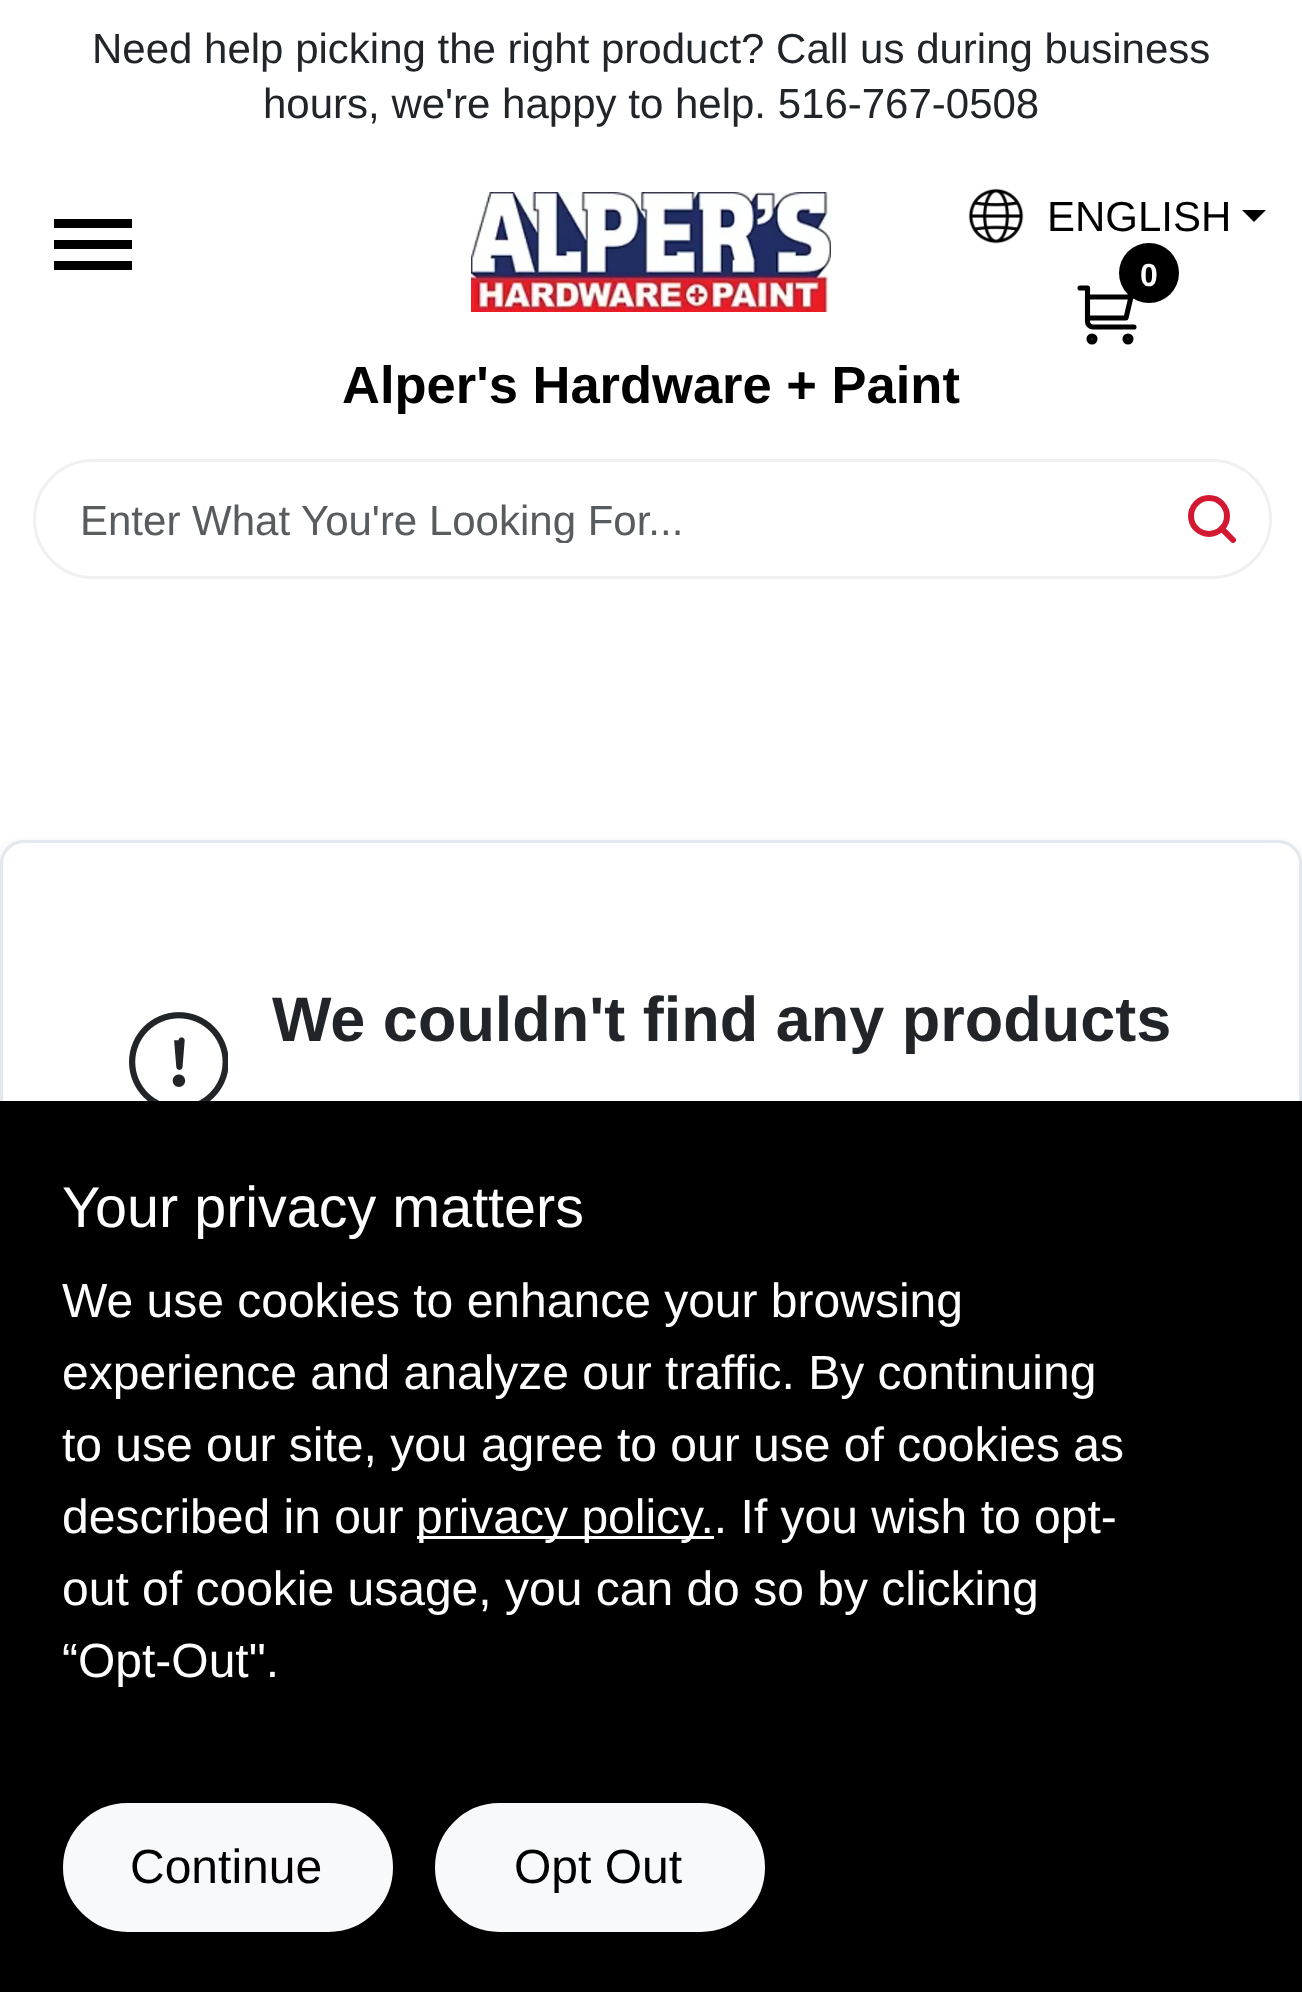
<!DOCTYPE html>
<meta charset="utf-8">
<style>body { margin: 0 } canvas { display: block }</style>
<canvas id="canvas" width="1302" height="1992"></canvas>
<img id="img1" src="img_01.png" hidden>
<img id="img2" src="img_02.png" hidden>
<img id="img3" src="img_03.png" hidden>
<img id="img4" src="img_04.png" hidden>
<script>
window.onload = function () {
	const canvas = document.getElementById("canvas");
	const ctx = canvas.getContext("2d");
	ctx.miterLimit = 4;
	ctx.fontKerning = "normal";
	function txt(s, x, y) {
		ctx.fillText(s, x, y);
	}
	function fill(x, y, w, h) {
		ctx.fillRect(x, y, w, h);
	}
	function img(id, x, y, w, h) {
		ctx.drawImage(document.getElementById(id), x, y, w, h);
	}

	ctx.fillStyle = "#FFFFFF";
	fill(0, 0, 1302, 1992);
	ctx.fillStyle = "#000000";
	fill(54, 219, 78, 9);
	fill(54, 240, 78, 9);
	fill(54, 261, 78, 9);
	img("img1", 968, 188, 56, 56);
	ctx.beginPath();
	ctx.moveTo(1242, 210);
	ctx.lineTo(1266, 210);
	ctx.lineTo(1254, 222);
	ctx.closePath();
	ctx.fill();
	ctx.beginPath();
	ctx.moveTo(1080, 288);
	ctx.lineTo(1087.5, 288);
	ctx.lineTo(1087.5, 322);
	ctx.bezierCurveTo(1087.5, 324.5, 1090, 327, 1093, 327);
	ctx.lineTo(1134, 327);
	ctx.moveTo(1089, 297);
	ctx.lineTo(1131, 297);
	ctx.lineTo(1126, 318);
	ctx.lineTo(1089, 318);
	ctx.strokeStyle = "#000000";
	ctx.lineWidth = 5.1;
	ctx.lineCap = "round";
	ctx.lineJoin = "round";
	ctx.stroke();
	ctx.beginPath();
	ctx.arc(1149, 273, 30, 0, Math.PI * 2);
	ctx.fill();
	ctx.beginPath();
	ctx.arc(1092, 339, 3, 0, Math.PI * 2);
	ctx.stroke();
	ctx.beginPath();
	ctx.arc(1128, 339, 3, 0, Math.PI * 2);
	ctx.stroke();
	img("img2", 471, 192, 360, 120);
	ctx.beginPath();
	ctx.roundRect(34.5, 460.5, 1236, 117, 58.5);
	ctx.strokeStyle = "#F0F0F0";
	ctx.lineWidth = 3;
	ctx.lineJoin = "miter";
	ctx.stroke();
	img("img3", 1188, 495, 48, 48);
	ctx.fillStyle = "rgba(0, 0, 0, 0.1)";
	ctx.filter = "blur(4.5px)";
	ctx.beginPath();
	ctx.roundRect(0, 843, 1302, 903, 24);
	ctx.fill();
	ctx.filter = "none";
	ctx.fillStyle = "#FFFFFF";
	ctx.beginPath();
	ctx.roundRect(1.5, 841.5, 1299, 900, 22.5);
	ctx.fill();
	ctx.strokeStyle = "#E2E8F0";
	ctx.stroke();
	img("img4", 129, 1012, 99, 89);
	ctx.fillStyle = "#000000";
	fill(0, 1101, 1302, 891);
	ctx.fillStyle = "#FFFFFF";
	fill(417, 1536, 297, 3);
	ctx.fillStyle = "#F8F9FA";
	ctx.beginPath();
	ctx.roundRect(64.5, 1804.5, 327, 126, 63);
	ctx.fill();
	ctx.strokeStyle = "#F8F9FA";
	ctx.stroke();
	ctx.beginPath();
	ctx.roundRect(436.5, 1804.5, 327, 126, 63);
	ctx.fill();
	ctx.stroke();
	ctx.font = "42px Liberation Sans";
	ctx.fillStyle = "#212529";
	txt("Need help picking the right product? Call us during business", 92, 63);
	txt("hours, we're happy to help. 516-767-0508", 263, 118);
	ctx.fillStyle = "#000000";
	txt("ENGLISH", 1047, 231);
	ctx.letterSpacing = "-3px";
	ctx.font = "bold 32px Liberation Sans";
	ctx.fillStyle = "#FFFFFF";
	txt("0", 1140, 286);
	ctx.letterSpacing = "0px";
	ctx.font = "bold 52.5px Liberation Sans";
	ctx.fillStyle = "#000000";
	txt("Alper's Hardware + Paint", 342, 403);
	ctx.save();
	ctx.beginPath();
	ctx.rect(81, 495, 1143, 48);
	ctx.clip();
	ctx.font = "42px Liberation Sans";
	ctx.fillStyle = "#595C5F";
	txt("Enter What You're Looking For...", 80, 535);
	ctx.restore();
	ctx.font = "bold 63px Liberation Sans";
	ctx.fillStyle = "#212529";
	txt("We couldn't find any products", 272, 1041);
	ctx.font = "57.5px Liberation Sans";
	ctx.fillStyle = "#FFFFFF";
	txt("Your privacy matters", 62, 1227);
	ctx.font = "48px Liberation Sans";
	txt("We use cookies to enhance your browsing", 62, 1317);
	txt("experience and analyze our traffic. By continuing", 62, 1389);
	txt("to use our site, you agree to our use of cookies as", 62, 1461);
	txt("described in our", 62, 1533);
	txt("privacy policy.. If you wish to opt-", 416, 1533);
	txt("out of cookie usage, you can do so by clicking", 62, 1605);
	txt("“Opt-Out\".", 62, 1677);
	ctx.fillStyle = "#000000";
	txt("Continue", 130, 1883);
	txt("Opt Out", 514, 1883);
};
</script>
